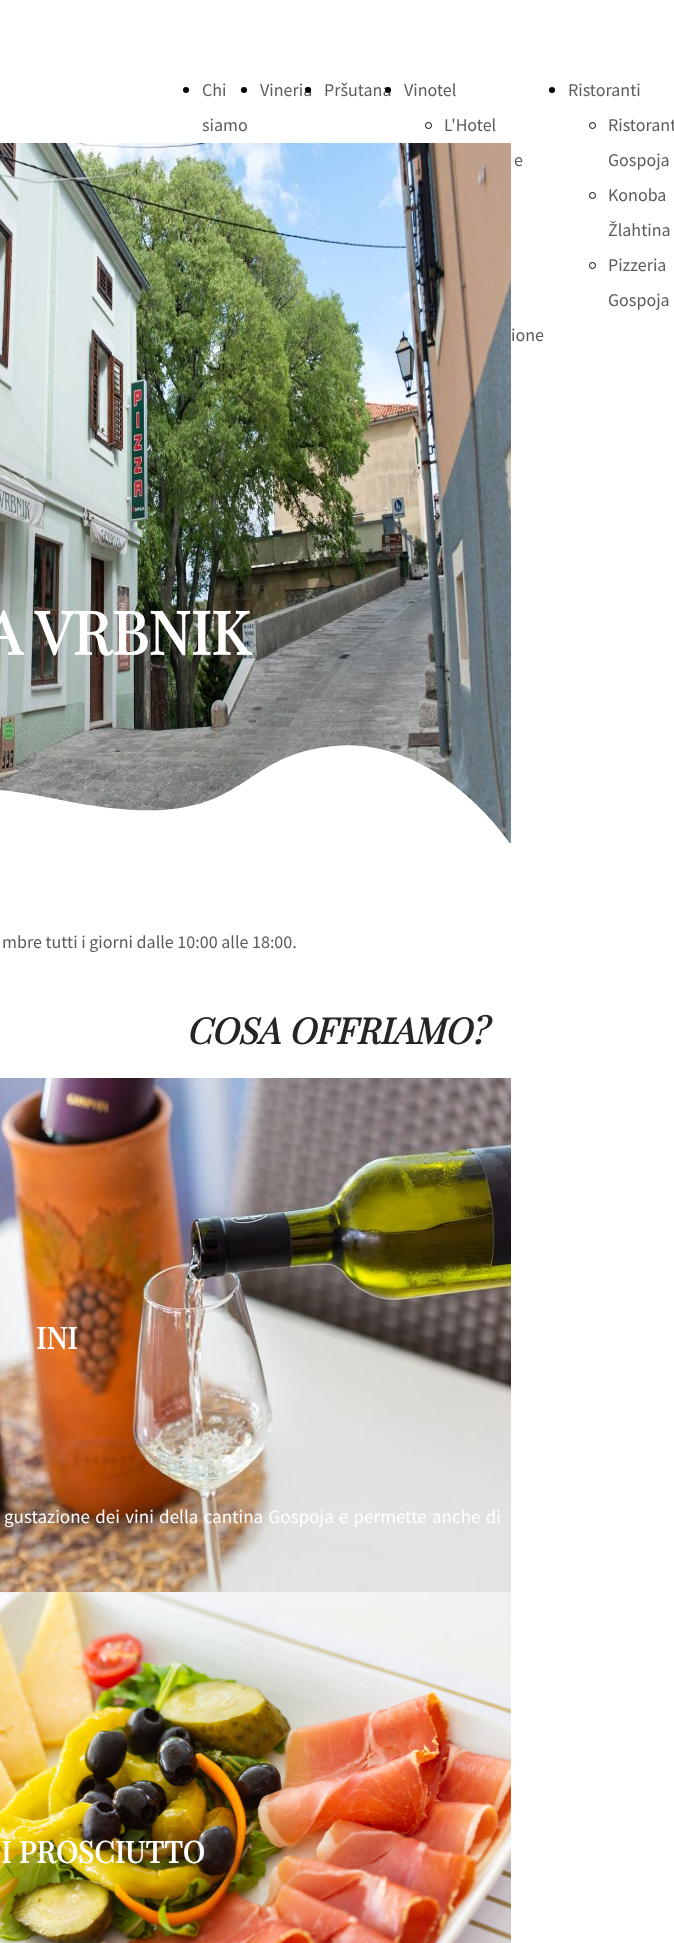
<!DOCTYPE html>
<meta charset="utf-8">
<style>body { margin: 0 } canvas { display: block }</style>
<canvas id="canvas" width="674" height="1943"></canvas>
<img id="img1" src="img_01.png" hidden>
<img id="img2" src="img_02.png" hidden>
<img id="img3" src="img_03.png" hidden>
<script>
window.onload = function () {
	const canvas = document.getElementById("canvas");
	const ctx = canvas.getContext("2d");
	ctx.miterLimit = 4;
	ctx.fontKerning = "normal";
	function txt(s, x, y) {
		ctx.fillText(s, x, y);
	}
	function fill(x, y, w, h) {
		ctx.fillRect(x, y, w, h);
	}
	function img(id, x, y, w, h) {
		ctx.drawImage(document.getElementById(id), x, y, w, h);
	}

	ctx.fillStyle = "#FFFFFF";
	fill(0, 0, 674, 1943);
	ctx.fillStyle = "#000000";
	ctx.beginPath();
	ctx.arc(186, 90, 3, 0, Math.PI * 2);
	ctx.fill();
	ctx.beginPath();
	ctx.arc(244, 90, 3, 0, Math.PI * 2);
	ctx.fill();
	ctx.beginPath();
	ctx.arc(428.5, 125.5, 3, 0, Math.PI * 2);
	ctx.strokeStyle = "#000000";
	ctx.stroke();
	ctx.beginPath();
	ctx.arc(552, 90, 3, 0, Math.PI * 2);
	ctx.fill();
	ctx.beginPath();
	ctx.arc(592.5, 125.5, 3, 0, Math.PI * 2);
	ctx.stroke();
	ctx.beginPath();
	ctx.arc(592.5, 195.5, 3, 0, Math.PI * 2);
	ctx.stroke();
	ctx.beginPath();
	ctx.arc(592.5, 265.5, 3, 0, Math.PI * 2);
	ctx.stroke();
	img("img1", 0, 143, 511, 700);
	ctx.fillStyle = "#FFFFFF";
	ctx.beginPath();
	ctx.moveTo(-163, 845);
	ctx.lineTo(511, 845);
	ctx.bezierCurveTo(511, 845, 440, 736, 333, 746);
	ctx.bezierCurveTo(225, 757, 252, 840, 56, 799);
	ctx.bezierCurveTo(-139, 758, -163, 845, -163, 845);
	ctx.closePath();
	ctx.fill();
	img("img2", 0, 1078, 511, 514);
	img("img3", 0, 1592, 511, 351);
	ctx.font = "18px Source Sans Pro";
	ctx.fillStyle = "#5C5C5C";
	txt("Chi", 202, 96);
	txt("siamo", 202, 131);
	txt("Vineria", 260, 96);
	ctx.fillStyle = "#000000";
	ctx.beginPath();
	ctx.arc(308, 90, 3, 0, Math.PI * 2);
	ctx.fill();
	ctx.fillStyle = "#5C5C5C";
	txt("Pršutana", 324, 96);
	ctx.fillStyle = "#000000";
	ctx.beginPath();
	ctx.arc(388, 90, 3, 0, Math.PI * 2);
	ctx.fill();
	ctx.fillStyle = "#5C5C5C";
	txt("Vinotel", 404, 96);
	txt("L'Hotel", 444, 131);
	txt("e", 514, 166);
	txt("ione", 511, 341);
	txt("Ristoranti", 568, 96);
	txt("Ristorant", 608, 131);
	txt("Gospoja", 608, 166);
	txt("Konoba", 608, 201);
	txt("Žlahtina", 608, 236);
	txt("Pizzeria", 608, 271);
	txt("Gospoja", 608, 306);
	ctx.font = "bold 60px Playfair Display";
	ctx.fillStyle = "#FFFFFF";
	txt("A VRBNIK", -16, 655);
	ctx.font = "18px Source Sans Pro";
	ctx.fillStyle = "#5C5C5C";
	txt("mbre tutti i giorni dalle 10:00 alle 18:00.", 2, 948);
	ctx.font = "italic bold 36px Playfair Display";
	ctx.fillStyle = "#252525";
	txt("COSA OFFRIAMO?", 186, 1044);
	ctx.font = "bold 30px Playfair Display";
	ctx.fillStyle = "#FFFFFF";
	txt("INI", 36, 1349);
	ctx.wordSpacing = "1.5px";
	ctx.font = "19px Source Sans Pro";
	txt("gustazione dei vini della cantina Gospoja e permette anche di", 4, 1523);
	ctx.wordSpacing = "0px";
	ctx.font = "bold 30px Playfair Display";
	txt("I PROSCIUTTO", 1, 1863);
};
</script>
